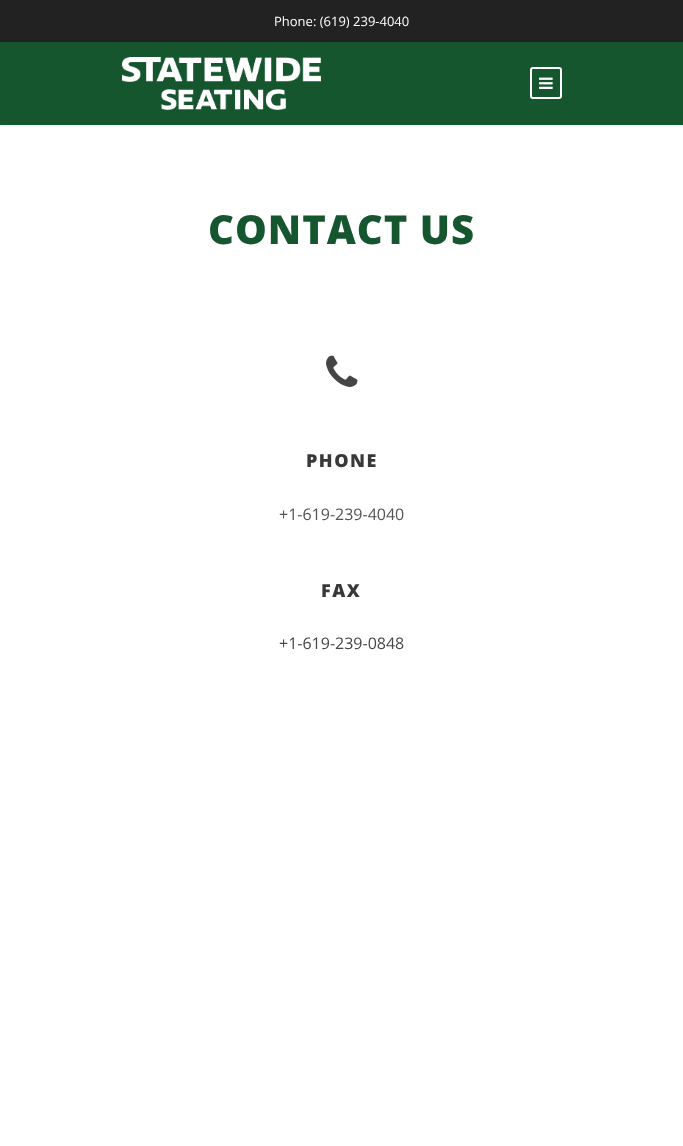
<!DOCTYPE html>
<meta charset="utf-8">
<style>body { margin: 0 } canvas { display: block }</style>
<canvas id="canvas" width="683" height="1146"></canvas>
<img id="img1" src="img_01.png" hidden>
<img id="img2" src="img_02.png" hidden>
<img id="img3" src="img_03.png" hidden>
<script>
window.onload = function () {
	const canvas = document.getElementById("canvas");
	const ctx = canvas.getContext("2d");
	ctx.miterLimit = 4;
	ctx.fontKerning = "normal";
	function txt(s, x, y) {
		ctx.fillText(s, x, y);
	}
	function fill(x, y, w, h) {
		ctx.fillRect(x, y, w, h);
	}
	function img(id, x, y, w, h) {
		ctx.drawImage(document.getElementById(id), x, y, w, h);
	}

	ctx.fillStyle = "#FFFFFF";
	fill(0, 0, 683, 1146);
	ctx.fillStyle = "#222222";
	fill(0, 0, 683, 42);
	ctx.fillStyle = "rgba(0, 0, 0, 0.1)";
	ctx.filter = "blur(1px)";
	ctx.beginPath();
	ctx.rect(0, 43, 683, 83);
	ctx.fill();
	ctx.filter = "none";
	ctx.fillStyle = "#15562F";
	fill(0, 42, 683, 83);
	img("img1", 122, 57, 199, 53);
	ctx.beginPath();
	ctx.roundRect(531, 68, 30, 30, 2);
	ctx.strokeStyle = "#FFFFFF";
	ctx.lineWidth = 2;
	ctx.stroke();
	img("img2", 539, 77, 14, 12);
	img("img3", 326, 355, 32, 32);
	ctx.font = "13px Open Sans";
	ctx.fillStyle = "#FFFFFF";
	txt("Phone: (619) 239-4040", 274, 26);
	ctx.letterSpacing = "1px";
	ctx.font = "800 40px Open Sans";
	ctx.fillStyle = "#15562F";
	txt("CONTACT US", 208, 244);
	ctx.letterSpacing = "1.5px";
	ctx.font = "800 18px Open Sans";
	ctx.fillStyle = "#383838";
	txt("PHONE", 306, 467);
	ctx.letterSpacing = "0px";
	ctx.font = "16px Open Sans";
	ctx.fillStyle = "#545454";
	txt("+1-619-239-4040", 279, 520);
	ctx.letterSpacing = "1.5px";
	ctx.font = "800 18px Open Sans";
	ctx.fillStyle = "#383838";
	txt("FAX", 321, 597);
	ctx.letterSpacing = "0px";
	ctx.font = "16px Open Sans";
	ctx.fillStyle = "#474747";
	txt("+1-619-239-0848", 279, 649);
};
</script>
